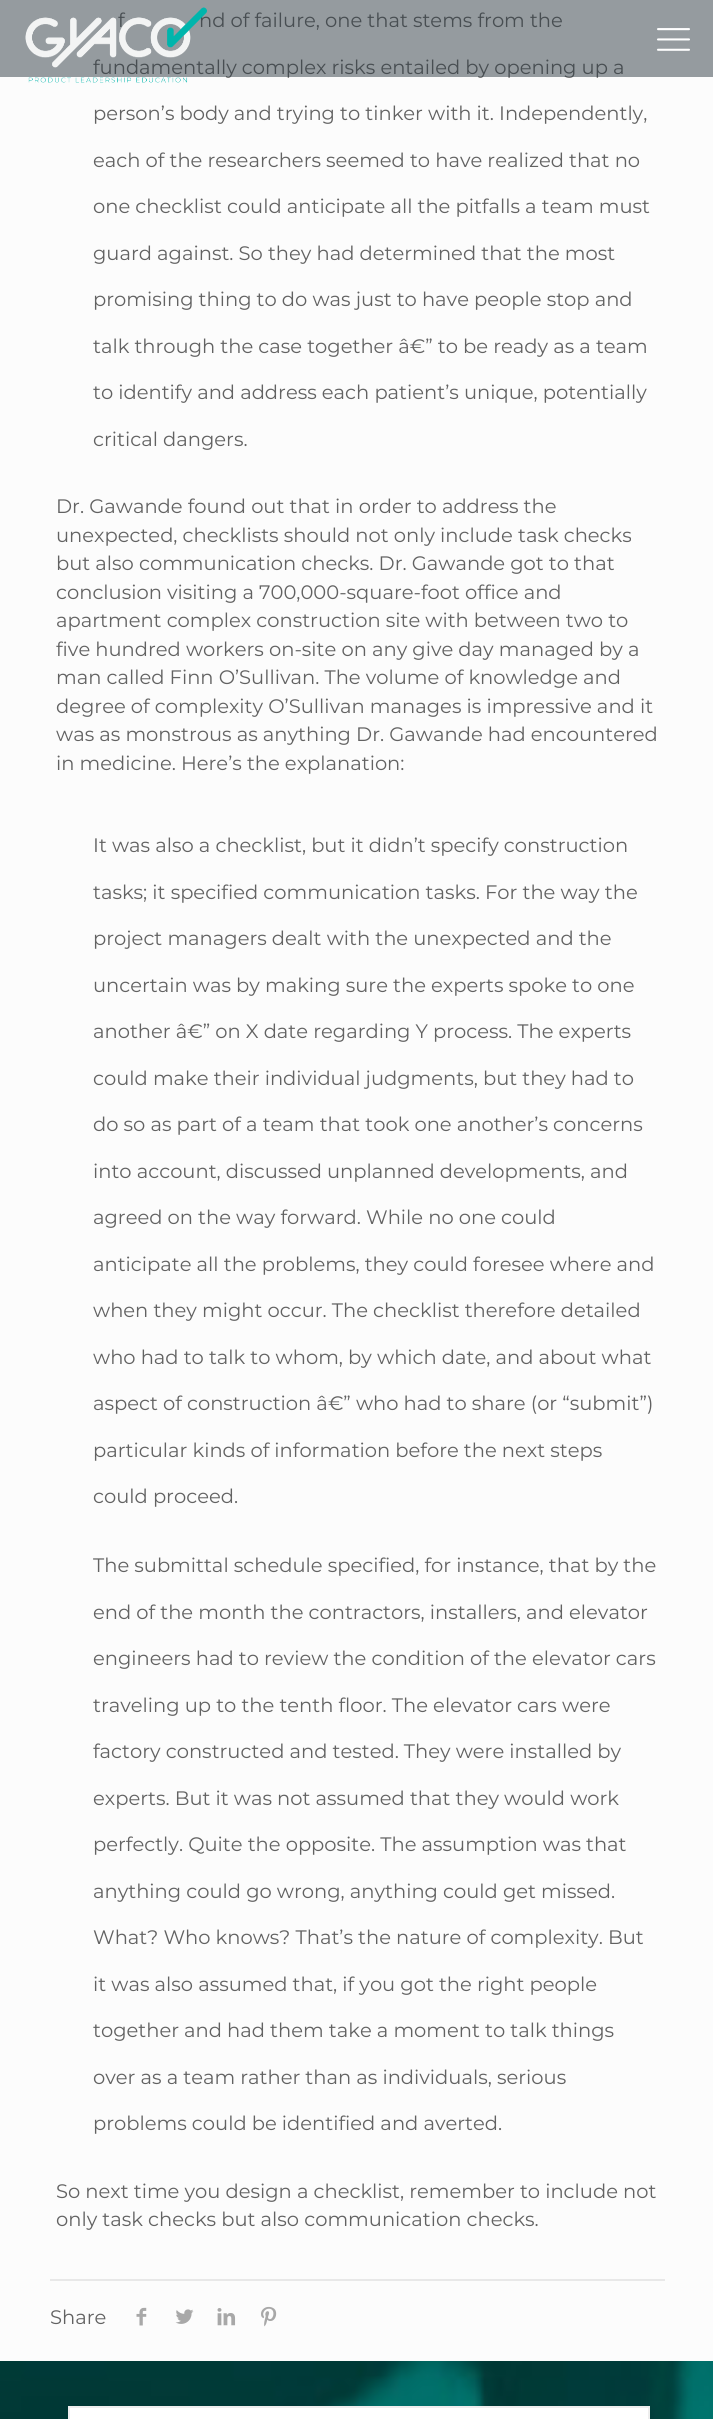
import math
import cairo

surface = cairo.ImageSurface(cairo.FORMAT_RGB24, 713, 2419)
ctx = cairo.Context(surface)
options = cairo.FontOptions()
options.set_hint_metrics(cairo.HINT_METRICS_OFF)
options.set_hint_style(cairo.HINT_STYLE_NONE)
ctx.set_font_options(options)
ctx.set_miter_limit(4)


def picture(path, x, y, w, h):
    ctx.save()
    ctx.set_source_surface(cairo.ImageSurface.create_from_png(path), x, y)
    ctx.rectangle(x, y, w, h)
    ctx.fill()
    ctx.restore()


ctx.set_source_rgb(0.988, 0.988, 0.988)
ctx.paint()
ctx.select_font_face("Montserrat")
ctx.set_font_size(19.5)
ctx.set_source_rgb(0.384, 0.384, 0.384)
ctx.move_to(118, 27)
ctx.show_text("f")
ctx.move_to(199, 27)
ctx.show_text("nd of failure, one that stems from the")
ctx.move_to(93, 74)
ctx.show_text("fundamentally complex risks entailed by opening up a")
ctx.set_source_rgba(0.18, 0.231, 0.259, 0.5)
ctx.rectangle(0, 0, 713, 77)
ctx.fill()
picture("img1.png", 25, 7, 182, 76)
picture("img2.png", 657, 28, 33, 23)
ctx.set_source_rgb(0.384, 0.384, 0.384)
ctx.move_to(93, 120)
ctx.show_text("person’s body and trying to tinker with it. Independently,")
ctx.move_to(93, 167)
ctx.show_text("each of the researchers seemed to have realized that no")
ctx.move_to(93, 213)
ctx.show_text("one checklist could anticipate all the pitfalls a team must")
ctx.move_to(93, 260)
ctx.show_text("guard against. So they had determined that the most")
ctx.move_to(93, 306)
ctx.show_text("promising thing to do was just to have people stop and")
ctx.move_to(93, 353)
ctx.show_text("talk through the case together â€” to be ready as a team")
ctx.move_to(93, 399)
ctx.show_text("to identify and address each patient’s unique, potentially")
ctx.move_to(93, 446)
ctx.show_text("critical dangers.")
ctx.move_to(56, 513)
ctx.show_text("Dr. Gawande found out that in order to address the")
ctx.move_to(56, 542)
ctx.show_text("unexpected, checklists should not only include task checks")
ctx.move_to(56, 570)
ctx.show_text("but also communication checks. Dr. Gawande got to that")
ctx.move_to(56, 599)
ctx.show_text("conclusion visiting a 700,000-square-foot office and")
ctx.move_to(56, 627)
ctx.show_text("apartment complex construction site with between two to")
ctx.move_to(56, 656)
ctx.show_text("five hundred workers on-site on any give day managed by a")
ctx.move_to(56, 684)
ctx.show_text("man called Finn O’Sullivan. The volume of knowledge and")
ctx.move_to(56, 713)
ctx.show_text("degree of complexity O’Sullivan manages is impressive and it")
ctx.move_to(56, 741)
ctx.show_text("was as monstrous as anything Dr. Gawande had encountered")
ctx.move_to(56, 770)
ctx.show_text("in medicine. Here’s the explanation:")
ctx.move_to(93, 852)
ctx.show_text("It was also a checklist, but it didn’t specify construction")
ctx.move_to(93, 899)
ctx.show_text("tasks; it specified communication tasks. For the way the")
ctx.move_to(93, 945)
ctx.show_text("project managers dealt with the unexpected and the")
ctx.move_to(93, 992)
ctx.show_text("uncertain was by making sure the experts spoke to one")
ctx.move_to(93, 1038)
ctx.show_text("another â€” on X date regarding Y process. The experts")
ctx.move_to(93, 1085)
ctx.show_text("could make their individual judgments, but they had to")
ctx.move_to(93, 1131)
ctx.show_text("do so as part of a team that took one another’s concerns")
ctx.move_to(93, 1178)
ctx.show_text("into account, discussed unplanned developments, and")
ctx.move_to(93, 1224)
ctx.show_text("agreed on the way forward. While no one could")
ctx.move_to(93, 1271)
ctx.show_text("anticipate all the problems, they could foresee where and")
ctx.move_to(93, 1317)
ctx.show_text("when they might occur. The checklist therefore detailed")
ctx.move_to(93, 1364)
ctx.show_text("who had to talk to whom, by which date, and about what")
ctx.move_to(93, 1410)
ctx.show_text("aspect of construction â€” who had to share (or “submit”)")
ctx.move_to(93, 1457)
ctx.show_text("particular kinds of information before the next steps")
ctx.move_to(93, 1503)
ctx.show_text("could proceed.")
ctx.move_to(93, 1572)
ctx.show_text("The submittal schedule specified, for instance, that by the")
ctx.move_to(93, 1619)
ctx.show_text("end of the month the contractors, installers, and elevator")
ctx.move_to(93, 1665)
ctx.show_text("engineers had to review the condition of the elevator cars")
ctx.move_to(93, 1712)
ctx.show_text("traveling up to the tenth floor. The elevator cars were")
ctx.move_to(93, 1758)
ctx.show_text("factory constructed and tested. They were installed by")
ctx.move_to(93, 1805)
ctx.show_text("experts. But it was not assumed that they would work")
ctx.move_to(93, 1851)
ctx.show_text("perfectly. Quite the opposite. The assumption was that")
ctx.move_to(93, 1898)
ctx.show_text("anything could go wrong, anything could get missed.")
ctx.move_to(93, 1944)
ctx.show_text("What? Who knows? That’s the nature of complexity. But")
ctx.move_to(93, 1991)
ctx.show_text("it was also assumed that, if you got the right people")
ctx.move_to(93, 2037)
ctx.show_text("together and had them take a moment to talk things")
ctx.move_to(93, 2084)
ctx.show_text("over as a team rather than as individuals, serious")
ctx.move_to(93, 2130)
ctx.show_text("problems could be identified and averted.")
ctx.move_to(56, 2198)
ctx.show_text("So next time you design a checklist, remember to include not")
ctx.move_to(56, 2226)
ctx.show_text("only task checks but also communication checks.")
ctx.set_source_rgb(0.91, 0.91, 0.91)
ctx.rectangle(50, 2279, 615, 2)
ctx.fill()
ctx.set_source_rgb(0.384, 0.384, 0.384)
ctx.move_to(50, 2324)
ctx.show_text("Share")
picture("img3.png", 136, 2307, 11, 19)
picture("img4.png", 175, 2309, 19, 15)
picture("img5.png", 217, 2308, 19, 18)
picture("img6.png", 261, 2306, 16, 21)
picture("img7.png", 0, 2361, 713, 58)
ctx.set_source_rgb(1, 1, 1)
ctx.rectangle(69, 2407, 580, 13)
ctx.fill_preserve()
ctx.set_source_rgb(0.933, 0.933, 0.933)
ctx.stroke()
surface.write_to_png("page.png")
